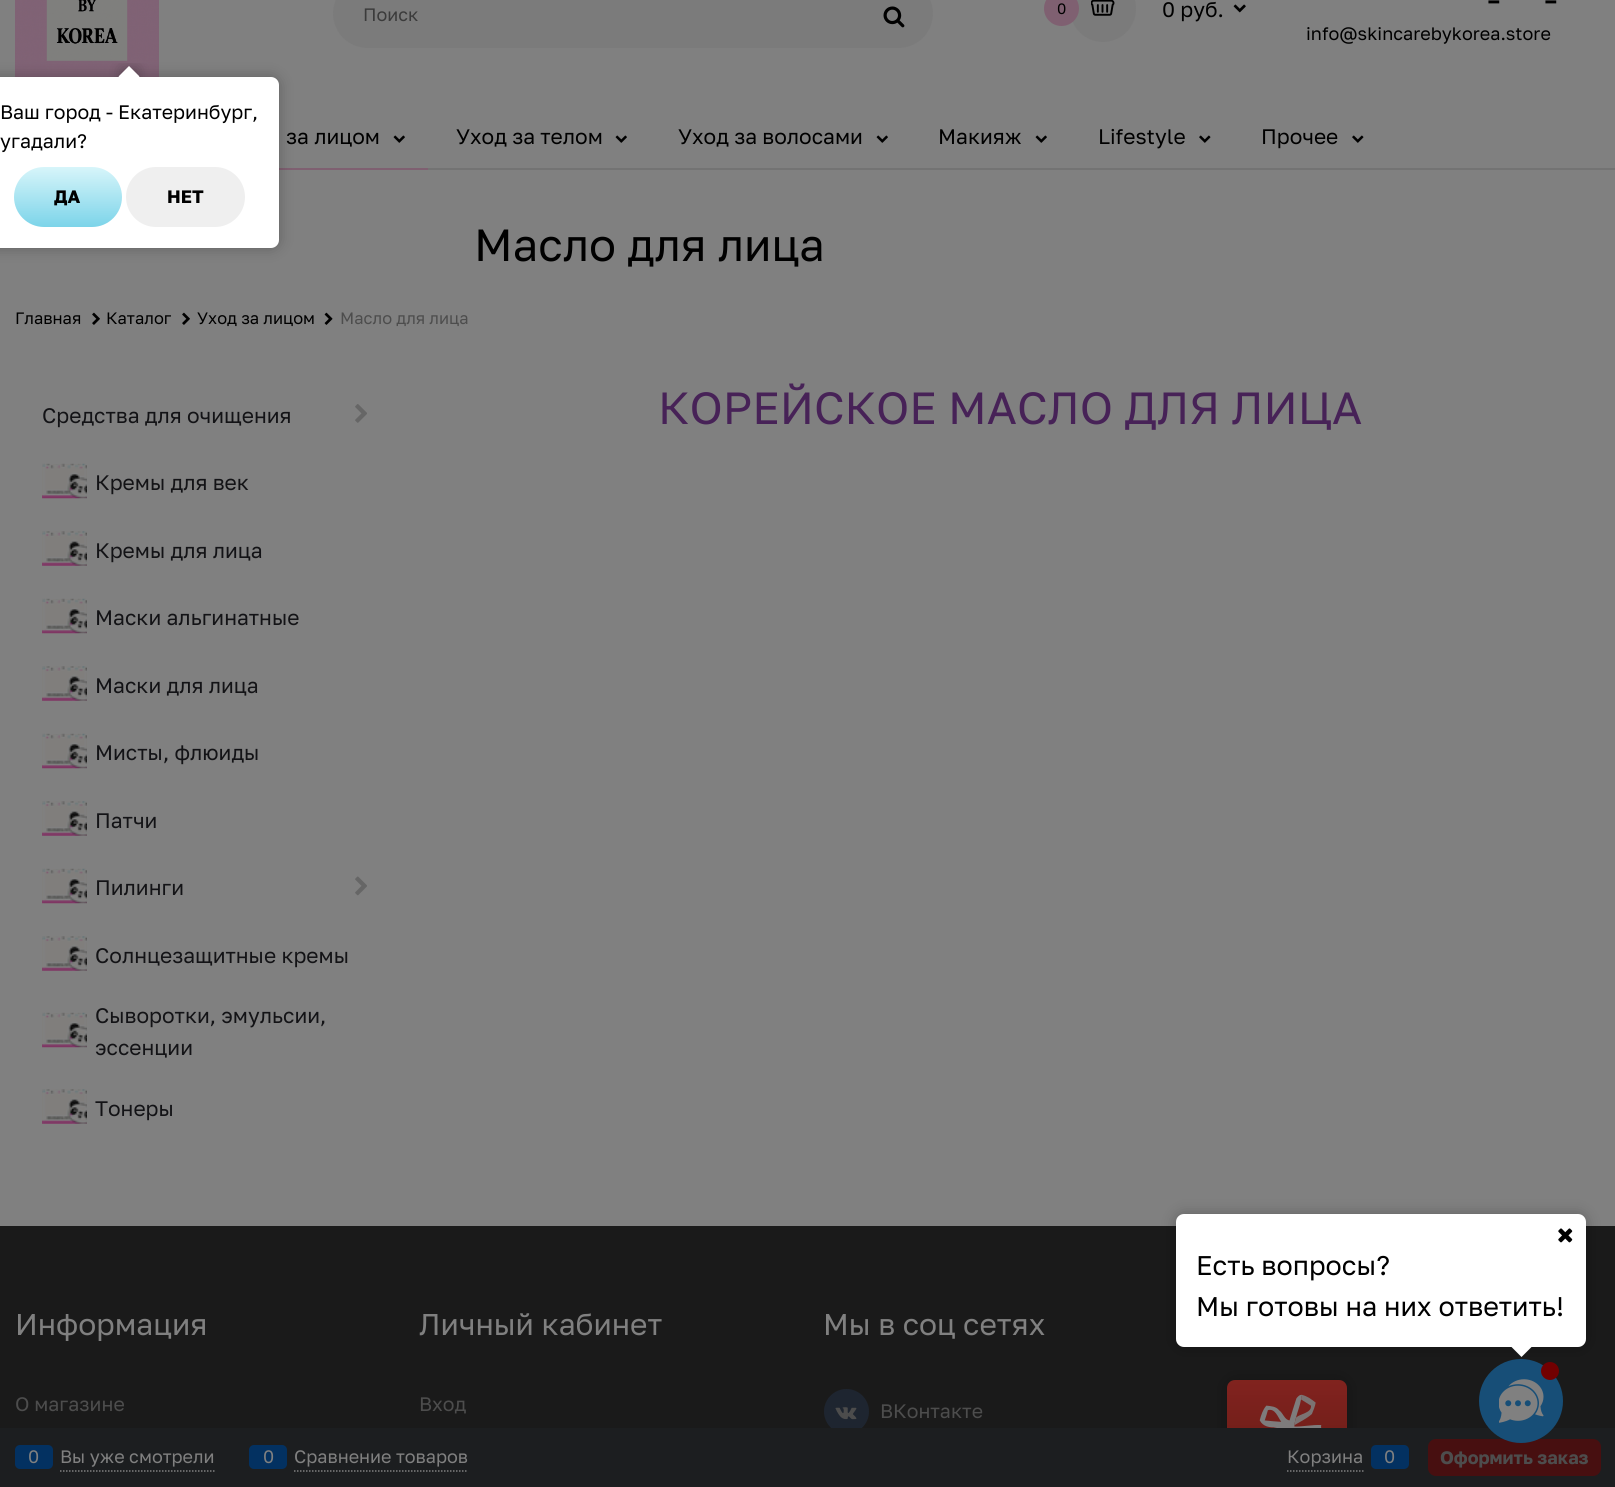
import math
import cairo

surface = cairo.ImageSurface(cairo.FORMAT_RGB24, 1615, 1487)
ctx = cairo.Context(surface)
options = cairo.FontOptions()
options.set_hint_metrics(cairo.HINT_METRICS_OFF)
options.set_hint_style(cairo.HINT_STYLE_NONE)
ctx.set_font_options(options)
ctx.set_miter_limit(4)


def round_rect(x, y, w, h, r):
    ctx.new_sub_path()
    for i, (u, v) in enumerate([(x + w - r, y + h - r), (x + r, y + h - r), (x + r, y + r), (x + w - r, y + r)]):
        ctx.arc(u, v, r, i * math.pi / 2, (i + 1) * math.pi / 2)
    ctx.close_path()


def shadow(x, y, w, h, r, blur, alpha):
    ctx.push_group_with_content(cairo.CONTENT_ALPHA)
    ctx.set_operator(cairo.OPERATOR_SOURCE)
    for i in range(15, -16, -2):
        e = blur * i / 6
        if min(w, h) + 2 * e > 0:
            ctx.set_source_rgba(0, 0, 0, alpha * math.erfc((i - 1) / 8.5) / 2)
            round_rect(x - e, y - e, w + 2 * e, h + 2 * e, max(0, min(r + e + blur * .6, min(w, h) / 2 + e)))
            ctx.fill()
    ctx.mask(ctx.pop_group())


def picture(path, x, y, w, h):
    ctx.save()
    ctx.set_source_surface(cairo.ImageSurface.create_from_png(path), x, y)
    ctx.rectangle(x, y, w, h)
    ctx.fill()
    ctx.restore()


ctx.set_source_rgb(0.502, 0.502, 0.502)
ctx.paint()
picture("img1.png", 15, 0, 144, 77)
ctx.set_source_rgb(0.482, 0.482, 0.482)
round_rect(333, -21, 600, 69, 34.5)
ctx.fill()
ctx.select_font_face("Golos Text")
ctx.set_font_size(18)
ctx.set_source_rgb(0.231, 0.231, 0.231)
ctx.move_to(363, 21)
ctx.show_text("Поиск")
picture("img2.png", 883, 6, 22, 22)
ctx.set_source_rgb(0.482, 0.482, 0.482)
round_rect(1070, -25, 66, 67, 33)
ctx.fill()
ctx.set_source_rgb(0.498, 0.376, 0.443)
ctx.arc(1061.5, 8.5, 17.5, 0, 2 * math.pi)
ctx.fill()
ctx.set_font_size(15)
ctx.set_source_rgb(0, 0, 0)
ctx.move_to(1057, 14)
ctx.show_text("0")
picture("img3.png", 1091, 0, 24, 16)
ctx.set_font_size(21)
ctx.move_to(1162, 17)
ctx.show_text("0 руб.")
picture("img4.png", 1233, 4, 13, 9)
ctx.set_font_size(36)
ctx.move_to(1487, 12)
ctx.show_text("-")
ctx.move_to(1544, 12)
ctx.show_text("-")
ctx.set_font_size(18)
ctx.move_to(1306, 40)
ctx.show_text("info@skincarebykorea.store")
ctx.set_source_rgb(0.451, 0.451, 0.451)
ctx.rectangle(428, 168, 1187, 2)
ctx.fill()
ctx.set_source_rgb(0.498, 0.376, 0.443)
ctx.rectangle(279, 168, 149, 2)
ctx.fill()
ctx.set_font_size(21)
ctx.set_source_rgb(0, 0, 0)
ctx.move_to(286, 144)
ctx.show_text("за лицом")
picture("img5.png", 393, 135, 12, 8)
ctx.move_to(456, 144)
ctx.show_text("Уход за телом")
picture("img5.png", 615, 135, 12, 8)
ctx.move_to(678, 144)
ctx.show_text("Уход за волосами")
picture("img5.png", 876, 135, 12, 8)
ctx.move_to(938, 144)
ctx.show_text("Макияж")
picture("img5.png", 1035, 135, 12, 8)
ctx.move_to(1098, 144)
ctx.show_text("Lifestyle")
picture("img6.png", 1199, 135, 12, 8)
ctx.move_to(1261, 144)
ctx.show_text("Прочее")
picture("img6.png", 1352, 135, 12, 8)
ctx.set_font_size(45)
ctx.move_to(474, 261)
ctx.show_text("Масло для лица")
ctx.set_font_size(16.5)
ctx.move_to(15, 324)
ctx.show_text("Главная")
picture("img7.png", 92, 312, 8, 13)
ctx.move_to(106, 324)
ctx.show_text("Каталог")
picture("img7.png", 182, 312, 8, 13)
ctx.move_to(197, 324)
ctx.show_text("Уход за лицом")
picture("img8.png", 324, 312, 9, 13)
ctx.set_source_rgb(0.302, 0.302, 0.302)
ctx.move_to(340, 324)
ctx.show_text("Масло для лица")
ctx.set_font_size(21)
ctx.set_source_rgb(0.075, 0.078, 0.086)
ctx.move_to(42, 423)
ctx.show_text("Средства для очищения")
picture("img9.png", 355, 404, 12, 19)
picture("img10.png", 42, 463, 45, 36)
ctx.move_to(95, 490)
ctx.show_text("Кремы для век")
picture("img11.png", 42, 531, 45, 35)
ctx.move_to(95, 558)
ctx.show_text("Кремы для лица")
picture("img10.png", 42, 598, 45, 36)
ctx.move_to(95, 625)
ctx.show_text("Маски альгинатные")
picture("img11.png", 42, 666, 45, 35)
ctx.move_to(95, 693)
ctx.show_text("Маски для лица")
picture("img10.png", 42, 733, 45, 36)
ctx.move_to(95, 760)
ctx.show_text("Мисты, флюиды")
picture("img11.png", 42, 801, 45, 35)
ctx.move_to(95, 828)
ctx.show_text("Патчи")
picture("img10.png", 42, 868, 45, 36)
ctx.move_to(95, 895)
ctx.show_text("Пилинги")
picture("img12.png", 355, 876, 12, 20)
picture("img11.png", 42, 936, 45, 35)
ctx.move_to(95, 963)
ctx.show_text("Солнцезащитные кремы")
picture("img10.png", 42, 1012, 45, 36)
ctx.move_to(95, 1023)
ctx.show_text("Сыворотки, эмульсии,")
ctx.move_to(95, 1055)
ctx.show_text("эссенции")
picture("img11.png", 42, 1089, 45, 35)
ctx.move_to(95, 1116)
ctx.show_text("Тонеры")
ctx.set_font_size(45)
ctx.set_source_rgb(0.278, 0.133, 0.341)
ctx.move_to(658, 424)
ctx.show_text("КОРЕЙСКОЕ МАСЛО ДЛЯ ЛИЦА")
ctx.set_source_rgb(0.102, 0.102, 0.102)
ctx.rectangle(0, 1226, 1615, 202)
ctx.fill()
ctx.set_font_size(30)
ctx.set_source_rgb(0.502, 0.502, 0.502)
ctx.move_to(15, 1335)
ctx.show_text("Информация")
ctx.set_font_size(19.5)
ctx.set_source_rgb(0.302, 0.302, 0.302)
ctx.move_to(15, 1411)
ctx.show_text("О магазине")
ctx.set_font_size(30)
ctx.set_source_rgb(0.502, 0.502, 0.502)
ctx.move_to(419, 1335)
ctx.show_text("Личный кабинет")
ctx.set_font_size(19.5)
ctx.set_source_rgb(0.302, 0.302, 0.302)
ctx.move_to(419, 1411)
ctx.show_text("Вход")
ctx.set_font_size(30)
ctx.set_source_rgb(0.502, 0.502, 0.502)
ctx.move_to(823, 1335)
ctx.show_text("Мы в соц сетях")
ctx.set_source_rgb(0.118, 0.145, 0.188)
ctx.new_path()
ctx.arc(846.5, 1411.5, 22.5, 0, 2 * math.pi)
ctx.fill()
picture("img13.png", 835, 1407, 22, 13)
ctx.set_font_size(19.5)
ctx.set_source_rgb(0.302, 0.302, 0.302)
ctx.move_to(880, 1418)
ctx.show_text("ВКонтакте")
ctx.set_source_rgb(0, 0, 0)
shadow(1227, 1380, 120, 75, 8, 7, 0.25)
gradient = cairo.LinearGradient(1287, 1380, 1287, 1455)
gradient.add_color_stop_rgba(0, 0.502, 0.137, 0.118, 1)
gradient.add_color_stop_rgba(0.12, 0.498, 0.133, 0.118, 1)
gradient.add_color_stop_rgba(0.67, 0.455, 0.122, 0.102, 1)
gradient.add_color_stop_rgba(0.98, 0.439, 0.114, 0.098, 1)
gradient.add_color_stop_rgba(1, 0.443, 0.145, 0.129, 1)
ctx.set_source(gradient)
round_rect(1227, 1380, 120, 75, 8)
ctx.fill()
picture("img14.png", 1259, 1394, 63, 34)
ctx.set_source_rgb(0.11, 0.118, 0.125)
ctx.rectangle(0, 1428, 1615, 59)
ctx.fill()
ctx.new_path()
ctx.move_to(60, 1471)
ctx.line_to(214.5, 1471)
ctx.set_source_rgb(0.502, 0.502, 0.502)
ctx.set_line_width(1.5)
ctx.set_dash([1.5, 1.5])
ctx.stroke()
ctx.set_source_rgb(0.012, 0.192, 0.38)
round_rect(15, 1445, 38, 24, 5)
ctx.fill()
ctx.set_font_size(18)
ctx.set_source_rgb(0.502, 0.502, 0.502)
ctx.move_to(28, 1463)
ctx.show_text("0")
ctx.move_to(60, 1463)
ctx.show_text("Вы уже смотрели")
ctx.new_path()
ctx.move_to(294, 1471)
ctx.line_to(468, 1471)
ctx.stroke()
ctx.set_source_rgb(0.012, 0.192, 0.38)
round_rect(249, 1445, 38, 24, 5)
ctx.fill()
ctx.set_source_rgb(0.502, 0.502, 0.502)
ctx.move_to(263, 1463)
ctx.show_text("0")
ctx.move_to(294, 1463)
ctx.show_text("Сравнение товаров")
ctx.new_path()
ctx.move_to(1287, 1471)
ctx.line_to(1363.5, 1471)
ctx.stroke()
ctx.move_to(1287, 1463)
ctx.show_text("Корзина")
ctx.set_source_rgb(0.012, 0.192, 0.38)
round_rect(1371, 1445, 38, 24, 5)
ctx.fill()
ctx.set_source_rgb(0.502, 0.502, 0.502)
ctx.move_to(1384, 1463)
ctx.show_text("0")
ctx.set_source_rgb(0.278, 0.059, 0.063)
round_rect(1428, 1439, 173, 37, 8)
ctx.fill()
ctx.select_font_face("Golos Text", cairo.FONT_SLANT_NORMAL, cairo.FONT_WEIGHT_BOLD)
ctx.set_source_rgb(0.302, 0.302, 0.302)
ctx.move_to(1440, 1464)
ctx.show_text("Оформить заказ")
ctx.set_source_rgb(0, 0, 0)
shadow(-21, 77, 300, 171, 8, 7, 0.25)
ctx.set_source_rgb(1, 1, 1)
round_rect(-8, 77, 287, 171, 8)
ctx.fill()
ctx.save()
ctx.rectangle(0, 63, 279, 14)
ctx.clip()
ctx.set_source_rgb(0, 0, 0)
shadow(122, 69, 15, 15, 0, 7, 0.25)
ctx.restore()
ctx.save()
ctx.rectangle(0, 63, 279, 14)
ctx.clip()
ctx.new_path()
ctx.move_to(129, 66)
ctx.line_to(139.5, 76.5)
ctx.line_to(129, 87)
ctx.line_to(118.5, 76.5)
ctx.close_path()
ctx.fill()
ctx.restore()
ctx.select_font_face("Golos Text")
ctx.set_font_size(19.5)
ctx.set_source_rgb(0, 0, 0)
ctx.move_to(0, 119)
ctx.show_text("Ваш город - Екатеринбург,")
ctx.move_to(0, 148)
ctx.show_text("угадали?")
gradient = cairo.LinearGradient(68, 167, 68, 227)
gradient.add_color_stop_rgba(0, 0.843, 0.961, 0.98, 1)
gradient.add_color_stop_rgba(1, 0.486, 0.831, 0.914, 1)
ctx.set_source(gradient)
round_rect(14, 167, 108, 60, 30)
ctx.fill()
ctx.select_font_face("Golos Text", cairo.FONT_SLANT_NORMAL, cairo.FONT_WEIGHT_BOLD)
ctx.set_font_size(18)
ctx.set_source_rgb(0, 0, 0)
ctx.move_to(54, 203)
ctx.show_text("ДА")
ctx.set_source_rgb(0.937, 0.937, 0.937)
round_rect(126, 167, 119, 60, 30)
ctx.fill()
ctx.set_source_rgb(0, 0, 0)
ctx.move_to(167, 203)
ctx.show_text("НЕТ")
ctx.set_source_rgb(0.09, 0.306, 0.467)
ctx.new_path()
ctx.arc(1521, 1401, 42, 0, 2 * math.pi)
ctx.fill()
picture("img16.png", 1499, 1379, 45, 44)
ctx.set_source_rgb(0.447, 0, 0.004)
ctx.arc(1550, 1371, 9, 0, 2 * math.pi)
ctx.fill()
ctx.set_source_rgb(0, 0, 0)
shadow(1176, 1214, 410, 133, 8, 7, 0.25)
ctx.set_source_rgb(1, 1, 1)
round_rect(1176, 1214, 410, 133, 8)
ctx.fill()
picture("img15.png", 1558, 1228, 15, 15)
ctx.select_font_face("Golos Text")
ctx.set_font_size(27)
ctx.set_source_rgb(0, 0, 0)
ctx.move_to(1196, 1275)
ctx.show_text("Есть вопросы?")
ctx.move_to(1196, 1316)
ctx.show_text("Мы готовы на них ответить!")
ctx.save()
ctx.rectangle(1176, 1347, 410, 14)
ctx.clip()
ctx.set_source_rgb(1, 1, 1)
ctx.new_path()
ctx.move_to(1521.5, 1336)
ctx.line_to(1532, 1346.5)
ctx.line_to(1521.5, 1357)
ctx.line_to(1511, 1346.5)
ctx.close_path()
ctx.fill()
ctx.restore()
surface.write_to_png("page.png")
